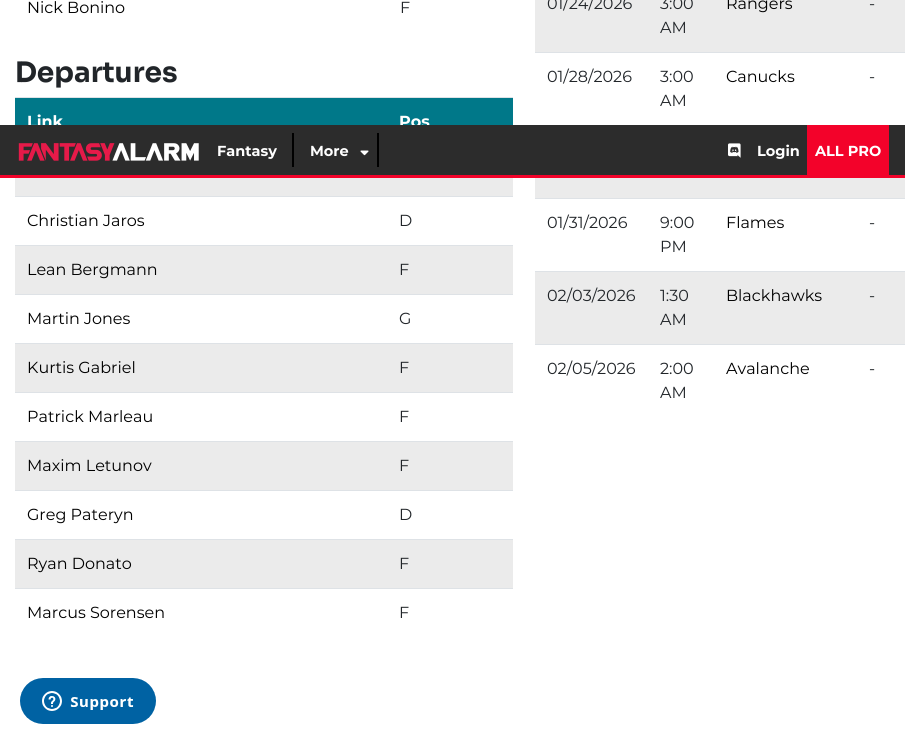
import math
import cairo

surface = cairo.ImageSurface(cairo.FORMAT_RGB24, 905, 738)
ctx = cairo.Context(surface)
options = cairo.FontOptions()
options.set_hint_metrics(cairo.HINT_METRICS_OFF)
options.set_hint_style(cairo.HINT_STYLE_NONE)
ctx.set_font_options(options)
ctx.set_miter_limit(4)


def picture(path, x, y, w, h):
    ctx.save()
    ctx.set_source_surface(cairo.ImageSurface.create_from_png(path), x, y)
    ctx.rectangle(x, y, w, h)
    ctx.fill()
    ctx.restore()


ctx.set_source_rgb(1, 1, 1)
ctx.paint()
ctx.select_font_face("Montserrat")
ctx.set_font_size(16)
ctx.set_source_rgb(0, 0, 0)
ctx.move_to(27, 13)
ctx.show_text("Nick Bonino")
ctx.set_source_rgb(0.129, 0.145, 0.161)
ctx.move_to(400, 13)
ctx.show_text("F")
ctx.select_font_face("Sora", cairo.FONT_SLANT_NORMAL, cairo.FONT_WEIGHT_BOLD)
ctx.set_font_size(28)
ctx.move_to(15, 82)
ctx.show_text("Departures")
ctx.set_source_rgb(0, 0.471, 0.537)
ctx.rectangle(15, 98, 498, 27)
ctx.fill()
ctx.select_font_face("Montserrat", cairo.FONT_SLANT_NORMAL, cairo.FONT_WEIGHT_BOLD)
ctx.set_font_size(16)
ctx.set_source_rgb(1, 1, 1)
ctx.move_to(27, 127)
ctx.show_text("Link")
ctx.set_source_rgb(0.871, 0.886, 0.902)
ctx.rectangle(15, 97, 498, 1)
ctx.fill()
ctx.set_source_rgb(1, 1, 1)
ctx.move_to(399, 127)
ctx.show_text("Pos")
ctx.set_source_rgb(0.918, 0.918, 0.918)
ctx.rectangle(15, 178, 498, 18)
ctx.fill()
ctx.select_font_face("Montserrat")
ctx.set_source_rgb(0, 0, 0)
ctx.move_to(27, 226)
ctx.show_text("Christian Jaros")
ctx.set_source_rgb(0.871, 0.886, 0.902)
ctx.rectangle(15, 196, 498, 1)
ctx.fill()
ctx.set_source_rgb(0.129, 0.145, 0.161)
ctx.move_to(399, 226)
ctx.show_text("D")
ctx.set_source_rgb(0.918, 0.918, 0.918)
ctx.rectangle(15, 246, 498, 48)
ctx.fill()
ctx.set_source_rgb(0, 0, 0)
ctx.move_to(27, 275)
ctx.show_text("Lean Bergmann")
ctx.set_source_rgb(0.871, 0.886, 0.902)
ctx.rectangle(15, 245, 498, 1)
ctx.fill()
ctx.set_source_rgb(0.129, 0.145, 0.161)
ctx.move_to(399, 275)
ctx.show_text("F")
ctx.set_source_rgb(0, 0, 0)
ctx.move_to(27, 324)
ctx.show_text("Martin Jones")
ctx.set_source_rgb(0.871, 0.886, 0.902)
ctx.rectangle(15, 294, 498, 1)
ctx.fill()
ctx.set_source_rgb(0.129, 0.145, 0.161)
ctx.move_to(399, 324)
ctx.show_text("G")
ctx.set_source_rgb(0.918, 0.918, 0.918)
ctx.rectangle(15, 344, 498, 48)
ctx.fill()
ctx.set_source_rgb(0, 0, 0)
ctx.move_to(27, 373)
ctx.show_text("Kurtis Gabriel")
ctx.set_source_rgb(0.871, 0.886, 0.902)
ctx.rectangle(15, 343, 498, 1)
ctx.fill()
ctx.set_source_rgb(0.129, 0.145, 0.161)
ctx.move_to(399, 373)
ctx.show_text("F")
ctx.set_source_rgb(0, 0, 0)
ctx.move_to(27, 422)
ctx.show_text("Patrick Marleau")
ctx.set_source_rgb(0.871, 0.886, 0.902)
ctx.rectangle(15, 392, 498, 1)
ctx.fill()
ctx.set_source_rgb(0.129, 0.145, 0.161)
ctx.move_to(399, 422)
ctx.show_text("F")
ctx.set_source_rgb(0.918, 0.918, 0.918)
ctx.rectangle(15, 442, 498, 48)
ctx.fill()
ctx.set_source_rgb(0, 0, 0)
ctx.move_to(27, 471)
ctx.show_text("Maxim Letunov")
ctx.set_source_rgb(0.871, 0.886, 0.902)
ctx.rectangle(15, 441, 498, 1)
ctx.fill()
ctx.set_source_rgb(0.129, 0.145, 0.161)
ctx.move_to(399, 471)
ctx.show_text("F")
ctx.set_source_rgb(0, 0, 0)
ctx.move_to(27, 520)
ctx.show_text("Greg Pateryn")
ctx.set_source_rgb(0.871, 0.886, 0.902)
ctx.rectangle(15, 490, 498, 1)
ctx.fill()
ctx.set_source_rgb(0.129, 0.145, 0.161)
ctx.move_to(399, 520)
ctx.show_text("D")
ctx.set_source_rgb(0.918, 0.918, 0.918)
ctx.rectangle(15, 540, 498, 48)
ctx.fill()
ctx.set_source_rgb(0, 0, 0)
ctx.move_to(27, 569)
ctx.show_text("Ryan Donato")
ctx.set_source_rgb(0.871, 0.886, 0.902)
ctx.rectangle(15, 539, 498, 1)
ctx.fill()
ctx.set_source_rgb(0.129, 0.145, 0.161)
ctx.move_to(399, 569)
ctx.show_text("F")
ctx.set_source_rgb(0, 0, 0)
ctx.move_to(27, 618)
ctx.show_text("Marcus Sorensen")
ctx.set_source_rgb(0.871, 0.886, 0.902)
ctx.rectangle(15, 588, 498, 1)
ctx.fill()
ctx.set_source_rgb(0.129, 0.145, 0.161)
ctx.move_to(399, 618)
ctx.show_text("F")
ctx.set_source_rgb(0.918, 0.918, 0.918)
ctx.rectangle(535, 0, 370, 52)
ctx.fill()
ctx.set_source_rgb(0.129, 0.145, 0.161)
ctx.move_to(547, 9)
ctx.show_text("01/24/2026")
ctx.move_to(660, 9)
ctx.show_text("3:00")
ctx.move_to(660, 33)
ctx.show_text("AM")
ctx.set_source_rgb(0, 0, 0)
ctx.move_to(726, 9)
ctx.show_text("Rangers")
ctx.set_source_rgb(0.129, 0.145, 0.161)
ctx.move_to(869, 9)
ctx.show_text("-")
ctx.move_to(547, 82)
ctx.show_text("01/28/2026")
ctx.move_to(660, 82)
ctx.show_text("3:00")
ctx.move_to(660, 106)
ctx.show_text("AM")
ctx.set_source_rgb(0, 0, 0)
ctx.move_to(726, 82)
ctx.show_text("Canucks")
ctx.set_source_rgb(0.871, 0.886, 0.902)
ctx.rectangle(535, 52, 370, 1)
ctx.fill()
ctx.set_source_rgb(0.129, 0.145, 0.161)
ctx.move_to(869, 82)
ctx.show_text("-")
ctx.set_source_rgb(0.918, 0.918, 0.918)
ctx.rectangle(535, 178, 370, 20)
ctx.fill()
ctx.set_source_rgb(0.129, 0.145, 0.161)
ctx.move_to(547, 228)
ctx.show_text("01/31/2026")
ctx.move_to(660, 228)
ctx.show_text("9:00")
ctx.move_to(660, 252)
ctx.show_text("PM")
ctx.set_source_rgb(0, 0, 0)
ctx.move_to(726, 228)
ctx.show_text("Flames")
ctx.set_source_rgb(0.871, 0.886, 0.902)
ctx.rectangle(535, 198, 370, 1)
ctx.fill()
ctx.set_source_rgb(0.129, 0.145, 0.161)
ctx.move_to(869, 228)
ctx.show_text("-")
ctx.set_source_rgb(0.918, 0.918, 0.918)
ctx.rectangle(535, 272, 370, 72)
ctx.fill()
ctx.set_source_rgb(0.129, 0.145, 0.161)
ctx.move_to(547, 301)
ctx.show_text("02/03/2026")
ctx.move_to(660, 301)
ctx.show_text("1:30")
ctx.move_to(660, 325)
ctx.show_text("AM")
ctx.set_source_rgb(0, 0, 0)
ctx.move_to(726, 301)
ctx.show_text("Blackhawks")
ctx.set_source_rgb(0.871, 0.886, 0.902)
ctx.rectangle(535, 271, 370, 1)
ctx.fill()
ctx.set_source_rgb(0.129, 0.145, 0.161)
ctx.move_to(869, 301)
ctx.show_text("-")
ctx.move_to(547, 374)
ctx.show_text("02/05/2026")
ctx.move_to(660, 374)
ctx.show_text("2:00")
ctx.move_to(660, 398)
ctx.show_text("AM")
ctx.set_source_rgb(0, 0, 0)
ctx.move_to(726, 374)
ctx.show_text("Avalanche")
ctx.set_source_rgb(0.871, 0.886, 0.902)
ctx.rectangle(535, 344, 370, 1)
ctx.fill()
ctx.set_source_rgb(0.129, 0.145, 0.161)
ctx.move_to(869, 374)
ctx.show_text("-")
ctx.set_source_rgb(0.953, 0.008, 0.165)
ctx.rectangle(0, 175, 905, 3)
ctx.fill()
ctx.set_source_rgb(0.173, 0.173, 0.173)
ctx.rectangle(0, 125, 905, 50)
ctx.fill()
picture("img1.png", 18, 143, 181, 18)
ctx.set_source_rgb(0, 0, 0)
ctx.rectangle(292, 133, 2, 34)
ctx.fill()
ctx.select_font_face("Montserrat", cairo.FONT_SLANT_NORMAL, cairo.FONT_WEIGHT_BOLD)
ctx.set_font_size(14.5)
ctx.set_source_rgb(1, 1, 1)
ctx.move_to(217, 156)
ctx.show_text("Fantasy")
ctx.set_source_rgb(0, 0, 0)
ctx.rectangle(377, 133, 2, 34)
ctx.fill()
ctx.set_source_rgb(1, 1, 1)
ctx.move_to(310, 156)
ctx.show_text("More")
picture("img2.png", 360, 150, 9, 6)
picture("img3.png", 728, 143, 13, 15)
ctx.move_to(757, 156)
ctx.show_text("Login")
ctx.set_source_rgb(0.953, 0.008, 0.165)
ctx.rectangle(807, 125, 82, 50)
ctx.fill()
ctx.set_source_rgb(1, 1, 1)
ctx.move_to(815, 156)
ctx.show_text("ALL PRO")
picture("img4.png", 20, 678, 136, 46)
surface.write_to_png("page.png")
